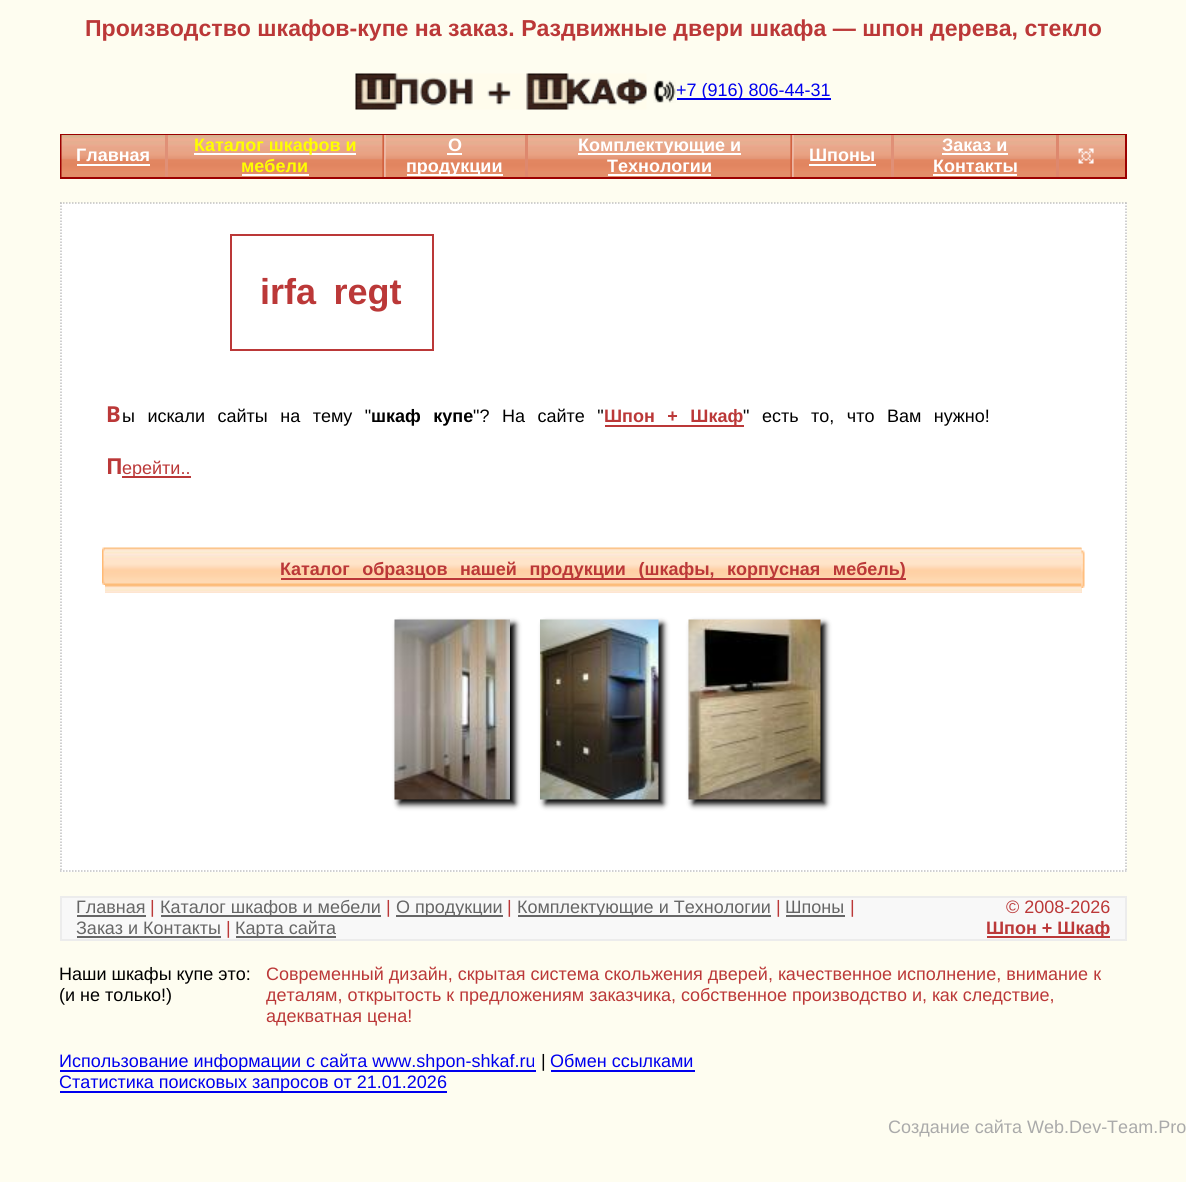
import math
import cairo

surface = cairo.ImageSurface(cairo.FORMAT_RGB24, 1186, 1182)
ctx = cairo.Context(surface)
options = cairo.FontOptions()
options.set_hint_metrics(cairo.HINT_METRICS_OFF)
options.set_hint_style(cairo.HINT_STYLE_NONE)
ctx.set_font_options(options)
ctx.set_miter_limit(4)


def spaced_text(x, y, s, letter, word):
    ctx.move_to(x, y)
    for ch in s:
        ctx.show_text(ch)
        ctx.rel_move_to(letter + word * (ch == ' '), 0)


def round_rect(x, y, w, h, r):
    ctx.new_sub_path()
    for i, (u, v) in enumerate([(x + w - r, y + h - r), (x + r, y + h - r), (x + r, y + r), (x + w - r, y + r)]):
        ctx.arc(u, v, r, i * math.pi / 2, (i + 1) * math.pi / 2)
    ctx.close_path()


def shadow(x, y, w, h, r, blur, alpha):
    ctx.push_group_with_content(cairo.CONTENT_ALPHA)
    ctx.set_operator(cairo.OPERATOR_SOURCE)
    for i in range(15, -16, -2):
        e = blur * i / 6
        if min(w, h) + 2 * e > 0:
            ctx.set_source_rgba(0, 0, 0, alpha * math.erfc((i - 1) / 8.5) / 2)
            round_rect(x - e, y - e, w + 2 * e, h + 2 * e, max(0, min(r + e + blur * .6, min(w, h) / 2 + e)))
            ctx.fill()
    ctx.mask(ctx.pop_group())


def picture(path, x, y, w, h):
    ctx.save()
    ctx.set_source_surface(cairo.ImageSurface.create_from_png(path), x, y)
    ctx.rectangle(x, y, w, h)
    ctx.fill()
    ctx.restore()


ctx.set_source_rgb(0.996, 0.992, 0.941)
ctx.paint()
ctx.select_font_face("Liberation Sans", cairo.FONT_SLANT_NORMAL, cairo.FONT_WEIGHT_BOLD)
ctx.set_font_size(23.1)
ctx.set_source_rgb(0.733, 0.22, 0.22)
ctx.move_to(85, 36)
ctx.show_text("Производство шкафов-купе на заказ. Раздвижные двери шкафа — шпон дерева, стекло")
picture("img1.png", 355, 73, 292, 37)
picture("img2.png", 653, 80, 23, 23)
ctx.set_source_rgb(0, 0, 0.933)
ctx.rectangle(677, 98, 154, 2)
ctx.fill()
ctx.select_font_face("Liberation Sans")
ctx.set_font_size(18)
ctx.move_to(676, 96)
ctx.show_text("+7 (916) 806-44-31")
ctx.rectangle(61, 135, 1065, 43)
ctx.set_source_rgb(0.612, 0, 0)
ctx.stroke()
picture("img3.png", 61, 135, 1064, 42)
ctx.select_font_face("Liberation Sans", cairo.FONT_SLANT_NORMAL, cairo.FONT_WEIGHT_BOLD)
ctx.set_source_rgb(1, 1, 1)
ctx.move_to(76, 161)
ctx.show_text("Главная")
ctx.rectangle(77, 164, 73, 2)
ctx.fill()
ctx.set_source_rgb(0.878, 0.565, 0.467)
ctx.rectangle(165, 135, 3, 42)
ctx.fill()
ctx.set_source_rgb(1, 1, 1)
ctx.rectangle(194, 153, 162, 2)
ctx.fill()
ctx.set_source_rgb(1, 1, 0)
ctx.move_to(194, 151)
ctx.show_text("Каталог шкафов и")
ctx.move_to(241, 172)
ctx.show_text("мебели")
ctx.set_source_rgb(1, 1, 1)
ctx.rectangle(242, 174, 67, 2)
ctx.fill()
picture("img4.png", 382, 135, 4, 42)
ctx.move_to(448, 151)
ctx.show_text("О")
ctx.rectangle(447, 153, 15, 2)
ctx.fill()
ctx.rectangle(407, 174, 96, 2)
ctx.fill()
ctx.move_to(406, 172)
ctx.show_text("продукции")
ctx.set_source_rgb(0.871, 0.533, 0.431)
ctx.rectangle(525, 135, 3, 42)
ctx.fill()
ctx.set_source_rgb(1, 1, 1)
ctx.rectangle(578, 153, 163, 2)
ctx.fill()
ctx.move_to(578, 151)
ctx.show_text("Комплектующие и")
ctx.move_to(607, 172)
ctx.show_text("Технологии")
ctx.rectangle(608, 174, 103, 2)
ctx.fill()
picture("img4.png", 790, 135, 4, 42)
ctx.move_to(809, 161)
ctx.show_text("Шпоны")
ctx.rectangle(809, 164, 67, 2)
ctx.fill()
ctx.set_source_rgb(0.878, 0.565, 0.467)
ctx.rectangle(891, 135, 3, 42)
ctx.fill()
ctx.set_source_rgb(1, 1, 1)
ctx.move_to(942, 151)
ctx.show_text("Заказ и")
ctx.rectangle(942, 153, 66, 2)
ctx.fill()
ctx.move_to(933, 172)
ctx.show_text("Контакты")
ctx.rectangle(933, 174, 84, 2)
ctx.fill()
ctx.set_source_rgb(0.871, 0.533, 0.431)
ctx.rectangle(1056, 135, 3, 42)
ctx.fill()
picture("img5.png", 1078, 148, 16, 16)
ctx.set_source_rgb(1, 1, 1)
ctx.rectangle(60, 203, 1067, 669)
ctx.fill()
ctx.new_path()
ctx.move_to(60, 203)
ctx.line_to(1126.5, 203)
ctx.set_source_rgb(0.753, 0.753, 0.753)
ctx.set_line_width(1.5)
ctx.set_dash([1.5, 1.5])
ctx.stroke()
ctx.new_path()
ctx.move_to(1126, 202.5)
ctx.line_to(1126, 871.5)
ctx.stroke()
ctx.new_path()
ctx.move_to(60, 871)
ctx.line_to(1126.5, 871)
ctx.stroke()
ctx.new_path()
ctx.move_to(61, 202.5)
ctx.line_to(61, 871.5)
ctx.stroke()
ctx.rectangle(231, 235, 202, 115)
ctx.set_source_rgb(0.733, 0.22, 0.22)
ctx.set_line_width(2)
ctx.set_dash([])
ctx.stroke()
ctx.set_font_size(36)
spaced_text(260, 304, "irfa regt", 0, 7.5)
ctx.select_font_face("Noto Sans", cairo.FONT_SLANT_NORMAL, cairo.FONT_WEIGHT_BOLD)
ctx.set_font_size(22)
ctx.move_to(106, 422)
ctx.show_text("В")
ctx.select_font_face("Liberation Sans")
ctx.set_font_size(18)
ctx.set_source_rgb(0, 0, 0)
spaced_text(122, 422, "ы искали сайты на тему \"", 0, 7.5)
ctx.select_font_face("Liberation Sans", cairo.FONT_SLANT_NORMAL, cairo.FONT_WEIGHT_BOLD)
spaced_text(371, 422, "шкаф купе", 0, 7.5)
ctx.select_font_face("Liberation Sans")
spaced_text(473, 422, "\"? На сайте \"", 0, 7.5)
ctx.set_source_rgb(0.733, 0.22, 0.22)
ctx.rectangle(605, 425, 139, 2)
ctx.fill()
ctx.select_font_face("Liberation Sans", cairo.FONT_SLANT_NORMAL, cairo.FONT_WEIGHT_BOLD)
spaced_text(604, 422, "Шпон + Шкаф", 0, 7.5)
ctx.select_font_face("Liberation Sans")
ctx.set_source_rgb(0, 0, 0)
spaced_text(743, 422, "\" есть то, что Вам нужно!", 0, 7.5)
ctx.select_font_face("Noto Sans", cairo.FONT_SLANT_NORMAL, cairo.FONT_WEIGHT_BOLD)
ctx.set_font_size(22)
ctx.set_source_rgb(0.733, 0.22, 0.22)
ctx.move_to(106, 474)
ctx.show_text("П")
ctx.rectangle(122, 476, 69, 2)
ctx.fill()
ctx.select_font_face("Liberation Sans")
ctx.set_font_size(18)
ctx.move_to(122, 474)
ctx.show_text("ерейти..")
picture("img6.png", 102, 547, 3, 38)
ctx.set_source_rgb(1, 0.89, 0.784)
ctx.rectangle(105, 548, 977, 45)
ctx.fill()
picture("img7.png", 105, 547, 977, 46)
ctx.set_source_rgb(0.733, 0.22, 0.22)
ctx.rectangle(281, 578, 625, 2)
ctx.fill()
ctx.select_font_face("Liberation Sans", cairo.FONT_SLANT_NORMAL, cairo.FONT_WEIGHT_BOLD)
spaced_text(280, 575, "Каталог образцов нашей продукции (шкафы, корпусная мебель)", 0, 7.5)
picture("img8.png", 1081, 550, 4, 38)
ctx.set_source_rgb(0, 0, 0)
shadow(399, 624, 116, 180, 0, 3, 1)
picture("img9.png", 394, 619, 116, 181)
shadow(545, 624, 118, 180, 0, 3, 1)
picture("img10.png", 540, 619, 119, 181)
shadow(693, 624, 132, 180, 0, 3, 1)
picture("img11.png", 688, 619, 133, 181)
ctx.set_source_rgb(0.969, 0.969, 0.969)
ctx.rectangle(61, 897, 1065, 43)
ctx.fill_preserve()
ctx.set_source_rgb(0.925, 0.925, 0.925)
ctx.stroke()
ctx.select_font_face("Liberation Sans")
ctx.set_source_rgb(0.4, 0.4, 0.4)
ctx.move_to(76, 913)
ctx.show_text("Главная")
ctx.rectangle(77, 915, 69, 2)
ctx.fill()
ctx.set_source_rgb(0.733, 0.22, 0.22)
ctx.move_to(150, 913)
ctx.show_text("|")
ctx.set_source_rgb(0.4, 0.4, 0.4)
ctx.rectangle(161, 915, 220, 2)
ctx.fill()
ctx.move_to(160, 913)
ctx.show_text("Каталог шкафов и мебели")
ctx.set_source_rgb(0.733, 0.22, 0.22)
ctx.move_to(386, 913)
ctx.show_text("|")
ctx.set_source_rgb(0.4, 0.4, 0.4)
ctx.rectangle(396, 915, 107, 2)
ctx.fill()
ctx.move_to(396, 913)
ctx.show_text("О продукции")
ctx.set_source_rgb(0.733, 0.22, 0.22)
ctx.move_to(507, 913)
ctx.show_text("|")
ctx.set_source_rgb(0.4, 0.4, 0.4)
ctx.rectangle(518, 915, 253, 2)
ctx.fill()
ctx.move_to(517, 913)
ctx.show_text("Комплектующие и Технологии")
ctx.set_source_rgb(0.733, 0.22, 0.22)
ctx.move_to(776, 913)
ctx.show_text("|")
ctx.set_source_rgb(0.4, 0.4, 0.4)
ctx.move_to(785, 913)
ctx.show_text("Шпоны")
ctx.rectangle(786, 915, 59, 2)
ctx.fill()
ctx.set_source_rgb(0.733, 0.22, 0.22)
ctx.move_to(850, 913)
ctx.show_text("|")
ctx.set_source_rgb(0.4, 0.4, 0.4)
ctx.move_to(76, 934)
ctx.show_text("Заказ и Контакты")
ctx.rectangle(77, 936, 144, 2)
ctx.fill()
ctx.set_source_rgb(0.733, 0.22, 0.22)
ctx.move_to(226, 934)
ctx.show_text("|")
ctx.set_source_rgb(0.4, 0.4, 0.4)
ctx.rectangle(236, 936, 100, 2)
ctx.fill()
ctx.move_to(235, 934)
ctx.show_text("Карта сайта")
ctx.set_source_rgb(0.733, 0.22, 0.22)
ctx.move_to(1006, 913)
ctx.show_text("© 2008-2026")
ctx.rectangle(987, 936, 123, 2)
ctx.fill()
ctx.select_font_face("Liberation Sans", cairo.FONT_SLANT_NORMAL, cairo.FONT_WEIGHT_BOLD)
ctx.move_to(986, 934)
ctx.show_text("Шпон + Шкаф")
ctx.select_font_face("Liberation Sans")
ctx.set_source_rgb(0, 0, 0)
ctx.move_to(59, 980)
ctx.show_text("Наши шкафы купе это:")
ctx.move_to(59, 1001)
ctx.show_text("(и не только!)")
ctx.set_source_rgb(0.733, 0.22, 0.22)
ctx.move_to(266, 980)
ctx.show_text("Современный дизайн, скрытая система скольжения дверей, качественное исполнение, внимание к")
ctx.move_to(266, 1001)
ctx.show_text("деталям, открытость к предложениям заказчика, собственное производство и, как следствие,")
ctx.move_to(266, 1022)
ctx.show_text("адекватная цена!")
ctx.set_source_rgb(0, 0, 0.933)
ctx.rectangle(60, 1070, 476, 2)
ctx.fill()
ctx.move_to(59, 1067)
ctx.show_text("Использование информации с сайта www.shpon-shkaf.ru")
ctx.set_source_rgb(0, 0, 0)
ctx.move_to(541, 1067)
ctx.show_text("|")
ctx.set_source_rgb(0, 0, 0.933)
ctx.move_to(550, 1067)
ctx.show_text("Обмен ссылками")
ctx.rectangle(551, 1070, 144, 2)
ctx.fill()
ctx.rectangle(60, 1091, 387, 2)
ctx.fill()
ctx.move_to(59, 1088)
ctx.show_text("Статистика поисковых запросов от 21.01.2026")
ctx.set_source_rgb(0.667, 0.667, 0.667)
ctx.move_to(888, 1133)
ctx.show_text("Создание сайта Web.Dev-Team.Pro")
surface.write_to_png("page.png")
